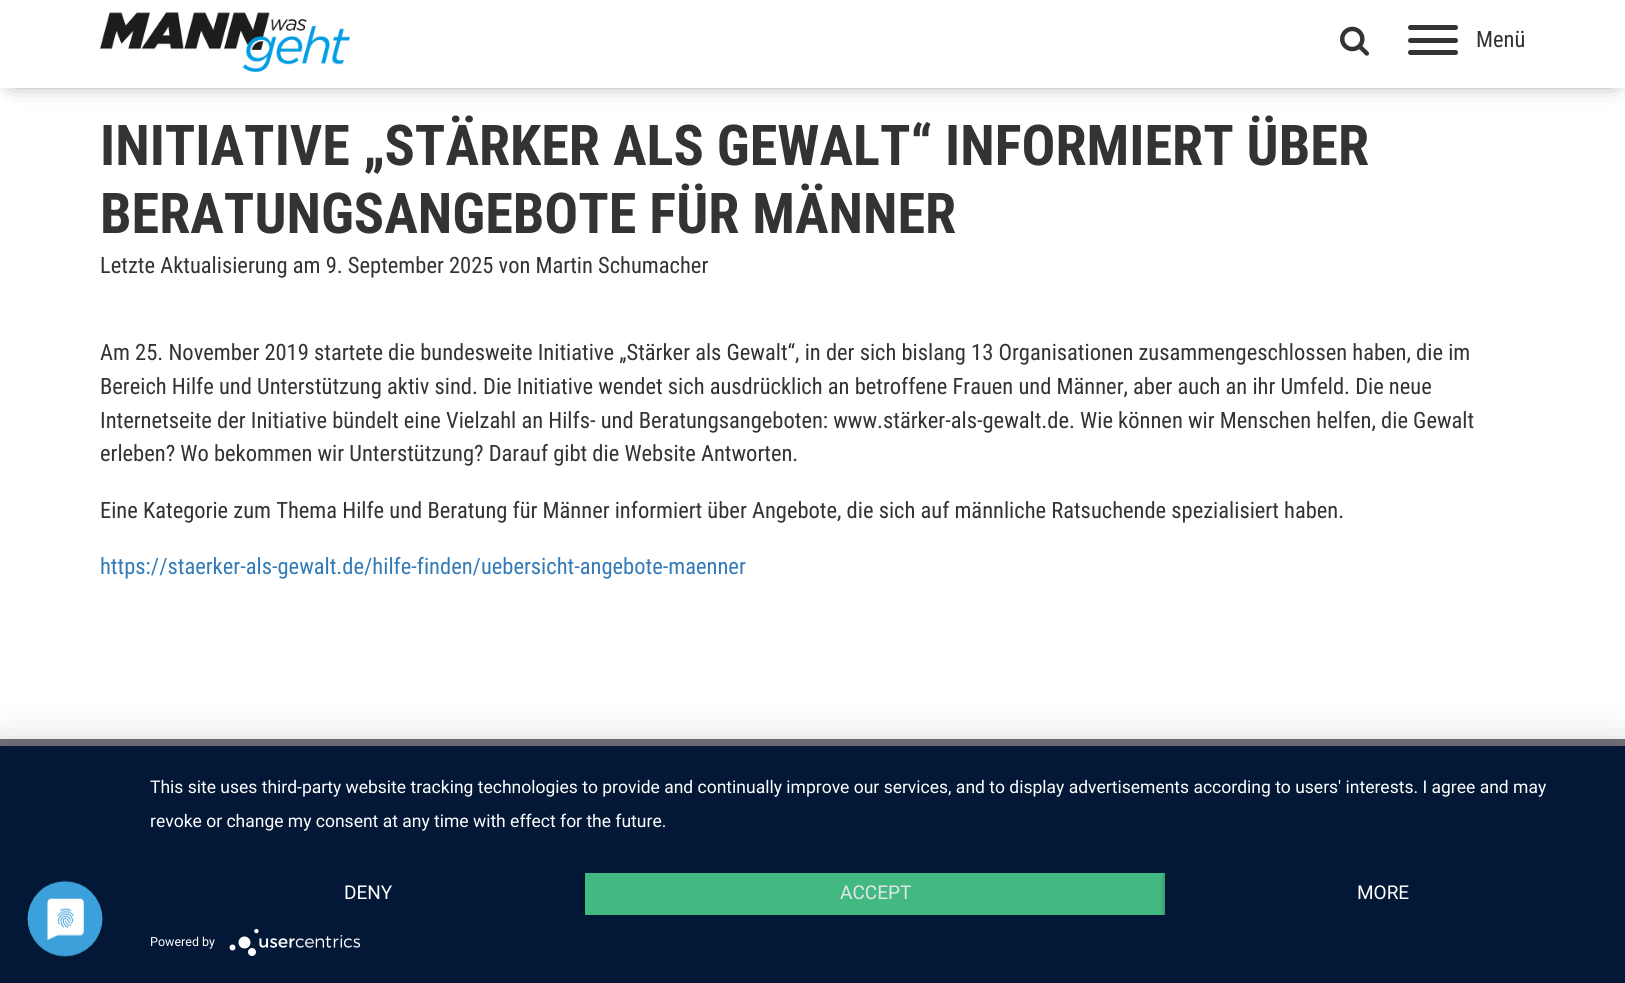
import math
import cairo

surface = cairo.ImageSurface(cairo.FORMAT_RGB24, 1625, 983)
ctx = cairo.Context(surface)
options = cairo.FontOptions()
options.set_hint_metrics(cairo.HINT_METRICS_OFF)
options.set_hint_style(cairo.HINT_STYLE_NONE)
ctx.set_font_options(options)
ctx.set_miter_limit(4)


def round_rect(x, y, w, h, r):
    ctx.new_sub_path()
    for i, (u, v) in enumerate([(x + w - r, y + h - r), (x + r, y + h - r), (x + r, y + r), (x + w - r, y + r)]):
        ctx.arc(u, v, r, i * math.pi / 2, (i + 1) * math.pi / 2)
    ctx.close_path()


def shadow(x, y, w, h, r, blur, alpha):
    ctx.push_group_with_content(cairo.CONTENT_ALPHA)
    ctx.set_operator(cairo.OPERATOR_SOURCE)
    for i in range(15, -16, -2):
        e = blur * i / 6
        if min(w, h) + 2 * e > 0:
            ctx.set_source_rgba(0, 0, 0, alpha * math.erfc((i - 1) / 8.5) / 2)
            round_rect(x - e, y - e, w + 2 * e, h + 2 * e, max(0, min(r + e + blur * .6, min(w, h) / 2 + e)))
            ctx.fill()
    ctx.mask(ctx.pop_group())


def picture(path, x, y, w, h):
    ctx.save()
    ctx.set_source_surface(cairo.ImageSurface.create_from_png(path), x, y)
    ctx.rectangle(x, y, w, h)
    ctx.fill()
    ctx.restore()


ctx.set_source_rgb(1, 1, 1)
ctx.paint()
ctx.set_source_rgb(0, 0, 0)
shadow(13, 13, 1600, 62, 0, 12.5, 1)
ctx.set_source_rgb(1, 1, 1)
ctx.rectangle(0, 0, 1625, 88)
ctx.fill()
picture("img1.png", 100, 12, 250, 61)
picture("img2.png", 1340, 26, 29, 30)
ctx.set_source_rgb(0.2, 0.2, 0.2)
round_rect(1408, 38, 50, 5, 2.5)
ctx.fill()
round_rect(1408, 25, 50, 5, 2.5)
ctx.fill()
round_rect(1408, 50, 50, 5, 2.5)
ctx.fill()
ctx.select_font_face("Roboto Condensed")
ctx.set_font_size(22.5)
ctx.move_to(1476, 47)
ctx.show_text("Menü")
ctx.select_font_face("Roboto Condensed", cairo.FONT_SLANT_NORMAL, cairo.FONT_WEIGHT_BOLD)
ctx.set_font_size(56.25)
ctx.move_to(100, 165)
ctx.show_text("INITIATIVE „STÄRKER ALS GEWALT“ INFORMIERT ÜBER")
ctx.move_to(100, 233)
ctx.show_text("BERATUNGSANGEBOTE FÜR MÄNNER")
ctx.select_font_face("Roboto Condensed")
ctx.set_font_size(22.5)
ctx.move_to(100, 273)
ctx.show_text("Letzte Aktualisierung am 9. September 2025 von Martin Schumacher")
ctx.move_to(100, 360)
ctx.show_text("Am 25. November 2019 startete die bundesweite Initiative „Stärker als Gewalt“, in der sich bislang 13 Organisationen zusammengeschlossen haben, die im")
ctx.move_to(100, 394)
ctx.show_text("Bereich Hilfe und Unterstützung aktiv sind. Die Initiative wendet sich ausdrücklich an betroffene Frauen und Männer, aber auch an ihr Umfeld. Die neue")
ctx.move_to(100, 428)
ctx.show_text("Internetseite der Initiative bündelt eine Vielzahl an Hilfs- und Beratungsangeboten: www.stärker-als-gewalt.de. Wie können wir Menschen helfen, die Gewalt")
ctx.move_to(100, 461)
ctx.show_text("erleben? Wo bekommen wir Unterstützung? Darauf gibt die Website Antworten.")
ctx.move_to(100, 518)
ctx.show_text("Eine Kategorie zum Thema Hilfe und Beratung für Männer informiert über Angebote, die sich auf männliche Ratsuchende spezialisiert haben.")
ctx.set_source_rgb(0.2, 0.478, 0.718)
ctx.move_to(100, 574)
ctx.show_text("https://staerker-als-gewalt.de/hilfe-finden/uebersicht-angebote-maenner")
ctx.set_source_rgb(0.463, 0.459, 0.49)
ctx.rectangle(0, 739, 1625, 7)
ctx.fill()
ctx.set_source_rgb(0, 0, 0)
shadow(0, 754, 1625, 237, 0, 22.5, 0.3)
ctx.set_source_rgb(0.008, 0.094, 0.212)
ctx.rectangle(0, 746, 1625, 237)
ctx.fill()
picture("img3.png", 26, 880, 78, 78)
ctx.select_font_face("Roboto")
ctx.set_font_size(17.5)
ctx.set_source_rgb(1, 1, 1)
ctx.move_to(150, 793)
ctx.show_text("This site uses third-party website tracking technologies to provide and continually improve our services, and to display advertisements according to users' interests. I agree and may")
ctx.move_to(150, 827)
ctx.show_text("revoke or change my consent at any time with effect for the future.")
ctx.set_font_size(19)
ctx.move_to(344, 899)
ctx.show_text("DENY")
ctx.save()
ctx.rectangle(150, 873, 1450, 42)
ctx.clip()
ctx.set_source_rgb(0, 0, 0)
shadow(585, 874, 580, 42, 0, 2.5, 0.4)
ctx.restore()
ctx.set_source_rgb(0.259, 0.725, 0.514)
ctx.rectangle(585, 873, 580, 42)
ctx.fill()
ctx.set_source_rgb(0.902, 0.902, 0.902)
ctx.move_to(840, 899)
ctx.show_text("ACCEPT")
ctx.save()
ctx.rectangle(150, 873, 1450, 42)
ctx.clip()
ctx.set_source_rgb(0, 0, 0)
shadow(1165, 874, 435, 42, 0, 2.5, 0.4)
ctx.restore()
ctx.set_source_rgb(0.008, 0.094, 0.212)
ctx.rectangle(1165, 873, 435, 42)
ctx.fill()
ctx.set_source_rgb(1, 1, 1)
ctx.move_to(1357, 899)
ctx.show_text("MORE")
ctx.set_font_size(12.5)
ctx.move_to(150, 946)
ctx.show_text("Powered by")
picture("img4.png", 229, 928, 132, 28)
surface.write_to_png("page.png")
